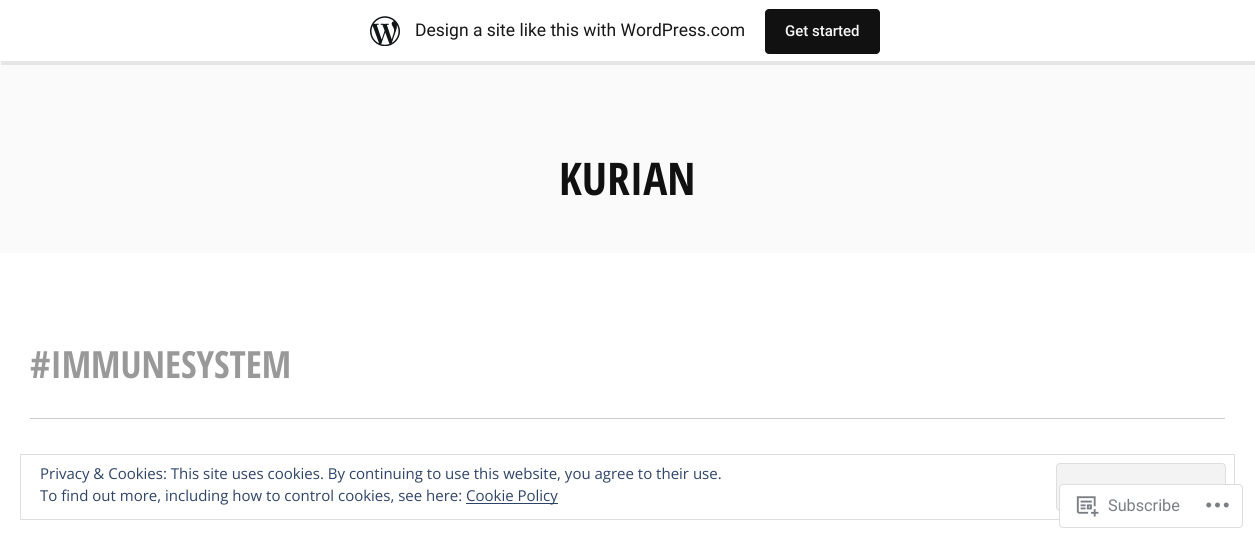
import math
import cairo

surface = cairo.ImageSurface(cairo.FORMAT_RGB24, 1255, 539)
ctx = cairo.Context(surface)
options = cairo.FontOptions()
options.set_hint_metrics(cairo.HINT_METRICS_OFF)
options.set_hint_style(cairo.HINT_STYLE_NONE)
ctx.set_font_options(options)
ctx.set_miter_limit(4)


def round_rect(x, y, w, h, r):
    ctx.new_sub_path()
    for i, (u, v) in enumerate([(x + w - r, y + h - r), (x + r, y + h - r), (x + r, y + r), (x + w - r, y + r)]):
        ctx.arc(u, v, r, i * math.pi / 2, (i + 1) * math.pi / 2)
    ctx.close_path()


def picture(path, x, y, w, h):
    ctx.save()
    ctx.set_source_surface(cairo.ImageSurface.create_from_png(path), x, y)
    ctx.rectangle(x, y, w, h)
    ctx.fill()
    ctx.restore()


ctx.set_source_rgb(1, 1, 1)
ctx.paint()
ctx.set_source_rgb(0.98, 0.98, 0.98)
ctx.rectangle(0, 61, 1255, 192)
ctx.fill()
ctx.set_source_rgba(0, 0, 0, 0.08)
ctx.new_path()
ctx.move_to(1, 61)
ctx.line_to(1, 65)
ctx.line_to(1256, 65)
ctx.line_to(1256, 4)
ctx.line_to(1255, 4)
ctx.line_to(1255, 61)
ctx.close_path()
ctx.fill()
picture("img1.png", 370, 16, 30, 30)
ctx.select_font_face("Roboto")
ctx.set_font_size(17.5)
ctx.set_source_rgb(0.09, 0.09, 0.09)
ctx.move_to(415, 36)
ctx.show_text("Design a site like this with WordPress.com")
ctx.set_source_rgb(0.067, 0.067, 0.067)
round_rect(765, 9, 115, 45, 4)
ctx.fill()
ctx.select_font_face("Roboto Medium")
ctx.set_font_size(15)
ctx.set_source_rgb(0.965, 0.969, 0.969)
ctx.move_to(785, 36)
ctx.show_text("Get started")
ctx.select_font_face("Open Sans Condensed", cairo.FONT_SLANT_NORMAL, cairo.FONT_WEIGHT_BOLD)
ctx.set_font_size(45)
ctx.set_source_rgb(0.067, 0.067, 0.067)
ctx.move_to(559, 195)
ctx.show_text("KURIAN")
ctx.set_source_rgb(0.8, 0.8, 0.8)
ctx.rectangle(30, 418, 1195, 1)
ctx.fill()
ctx.set_font_size(37.5)
ctx.set_source_rgb(0.6, 0.6, 0.6)
ctx.move_to(30, 378)
ctx.show_text("#IMMUNESYSTEM")
ctx.rectangle(20.5, 454.5, 1214, 65)
ctx.set_source_rgb(0.871, 0.871, 0.871)
ctx.set_line_width(1)
ctx.stroke()
ctx.select_font_face("Open Sans")
ctx.set_font_size(15)
ctx.set_source_rgb(0.18, 0.267, 0.404)
ctx.move_to(40, 479)
ctx.show_text("Privacy & Cookies: This site uses cookies. By continuing to use this website, you agree to their use.")
ctx.set_source_rgb(0.953, 0.953, 0.953)
round_rect(1056.5, 463.5, 169, 47, 3.5)
ctx.fill_preserve()
ctx.set_source_rgb(0.871, 0.871, 0.871)
ctx.stroke()
ctx.set_source_rgb(0.18, 0.267, 0.404)
ctx.move_to(40, 501)
ctx.show_text("To find out more, including how to control cookies, see here:")
ctx.rectangle(466, 503, 92, 1)
ctx.fill()
ctx.move_to(466, 501)
ctx.show_text("Cookie Policy")
ctx.set_source_rgba(1, 1, 1, 0.98)
round_rect(1059, 484, 184, 44, 4)
ctx.fill()
round_rect(1059.5, 484.5, 183, 43, 3.5)
ctx.set_source_rgba(0.863, 0.863, 0.871, 0.98)
ctx.stroke()
picture("img2.png", 1076, 496, 23, 21)
ctx.select_font_face("Roboto")
ctx.set_font_size(16.25)
ctx.set_source_rgb(0.482, 0.498, 0.518)
ctx.move_to(1108, 511)
ctx.show_text("Subscribe")
picture("img3.png", 1206, 502, 23, 6)
surface.write_to_png("page.png")
